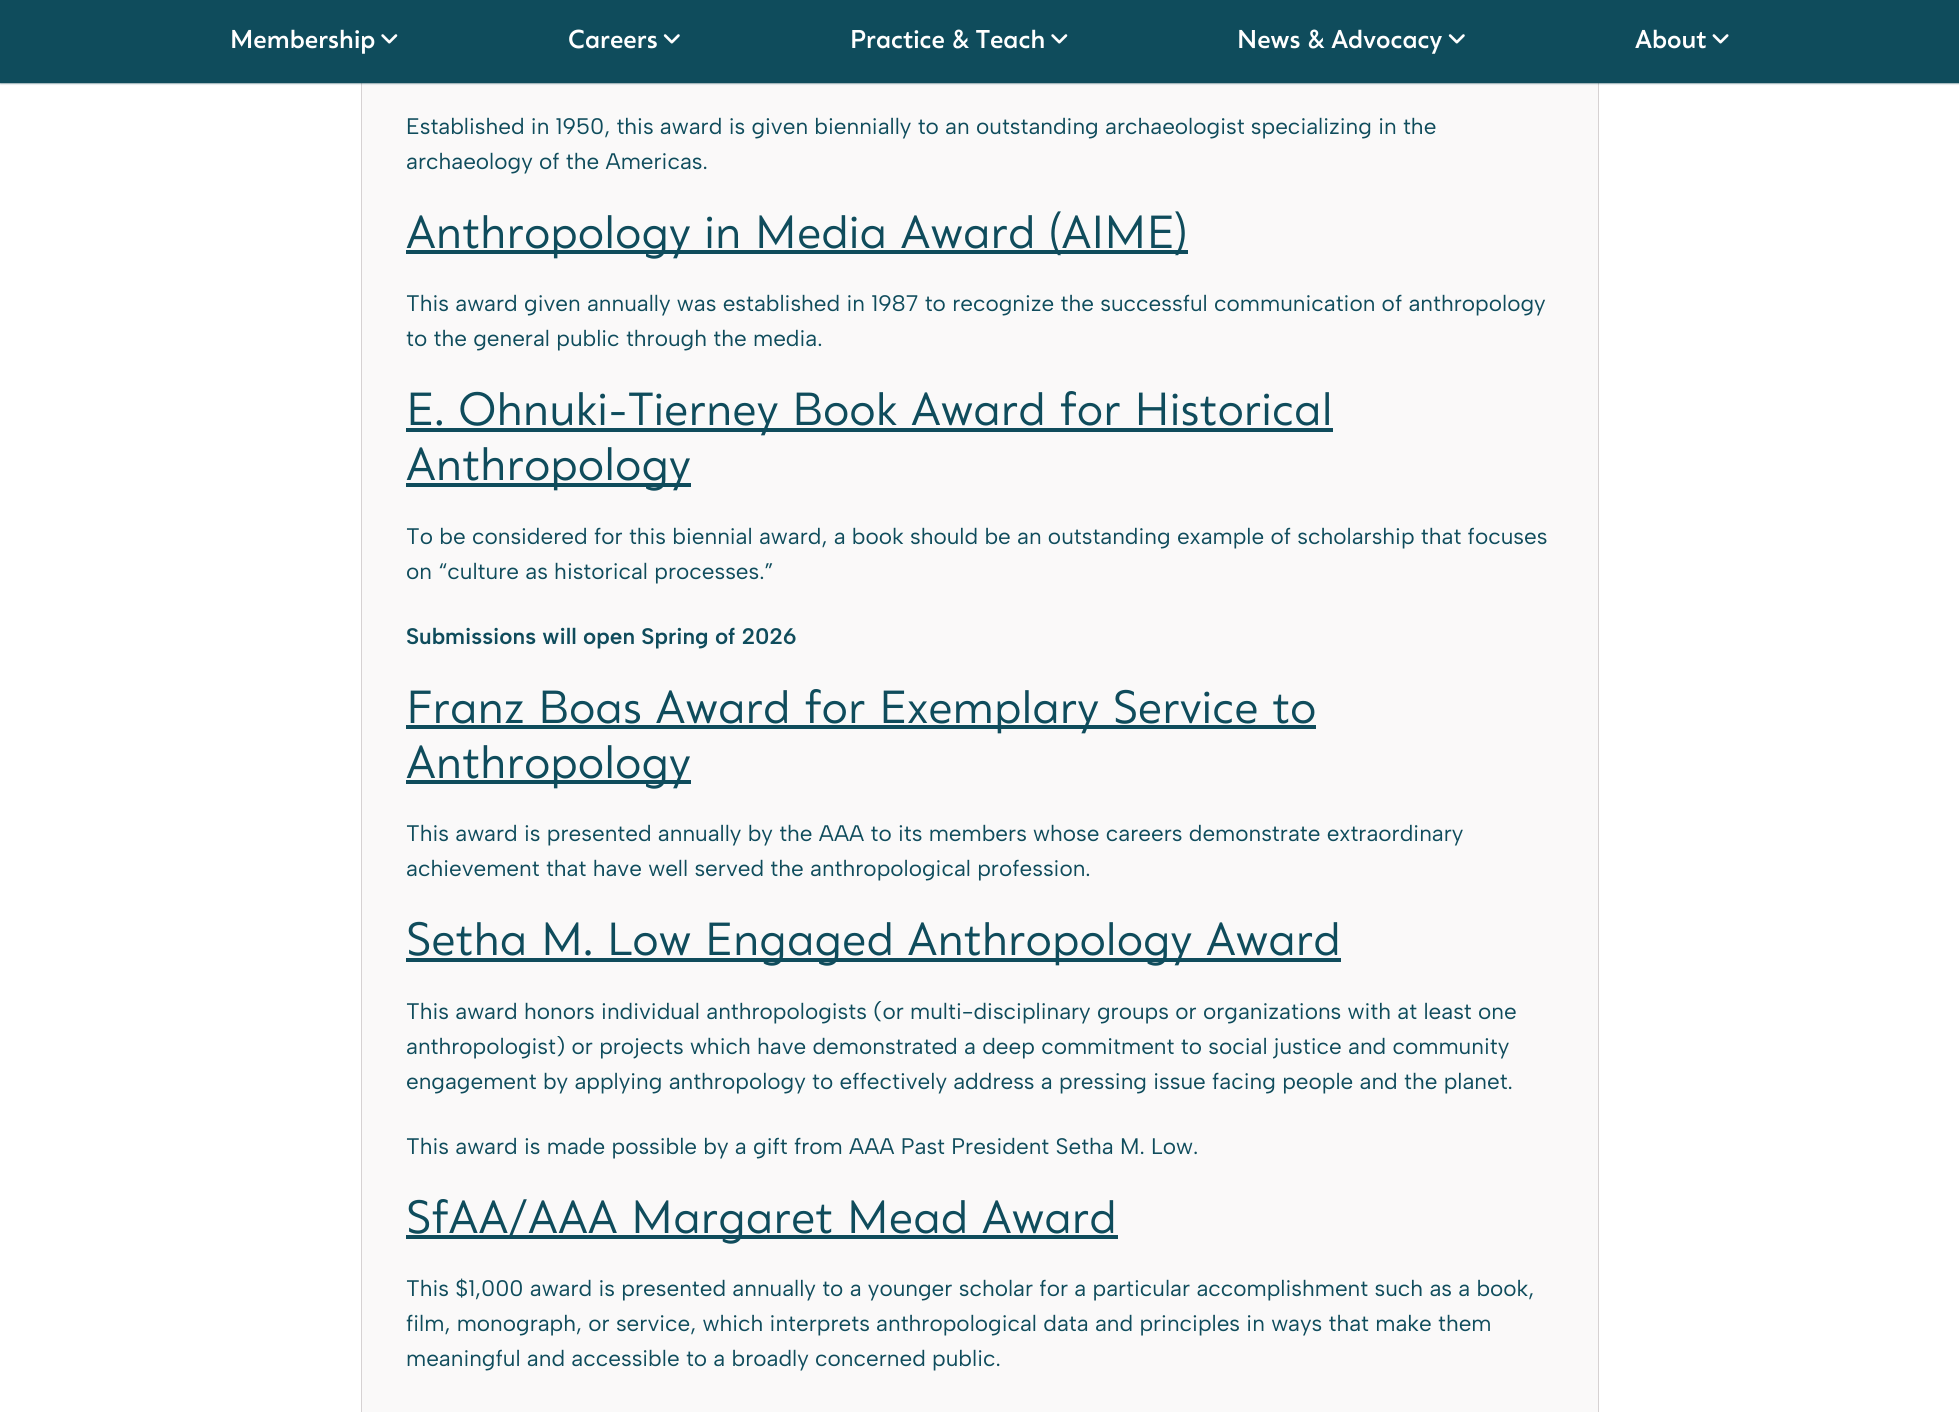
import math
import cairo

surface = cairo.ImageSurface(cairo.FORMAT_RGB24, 1959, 1412)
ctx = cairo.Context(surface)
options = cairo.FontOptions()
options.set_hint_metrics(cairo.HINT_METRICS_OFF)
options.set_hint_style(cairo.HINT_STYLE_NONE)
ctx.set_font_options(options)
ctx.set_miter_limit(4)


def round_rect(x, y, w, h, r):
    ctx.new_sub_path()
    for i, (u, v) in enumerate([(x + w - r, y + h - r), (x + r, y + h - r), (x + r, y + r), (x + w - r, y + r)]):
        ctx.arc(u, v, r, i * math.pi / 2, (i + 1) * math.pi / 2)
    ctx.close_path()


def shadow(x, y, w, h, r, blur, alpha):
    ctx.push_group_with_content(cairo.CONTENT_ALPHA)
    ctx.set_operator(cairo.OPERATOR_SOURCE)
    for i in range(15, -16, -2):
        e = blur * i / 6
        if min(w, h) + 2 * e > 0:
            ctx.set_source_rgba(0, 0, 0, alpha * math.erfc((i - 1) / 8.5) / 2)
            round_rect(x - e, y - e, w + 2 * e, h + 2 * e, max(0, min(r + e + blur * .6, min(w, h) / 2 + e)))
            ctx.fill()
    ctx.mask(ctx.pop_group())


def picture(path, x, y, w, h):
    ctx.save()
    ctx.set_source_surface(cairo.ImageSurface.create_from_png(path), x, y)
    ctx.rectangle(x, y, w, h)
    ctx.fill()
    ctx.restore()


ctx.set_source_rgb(1, 1, 1)
ctx.paint()
ctx.set_source_rgb(0.98, 0.976, 0.976)
ctx.rectangle(362, 83, 1236, 1329)
ctx.fill()
ctx.set_source_rgb(0.839, 0.824, 0.827)
ctx.rectangle(1598, 83, 1, 1329)
ctx.fill()
ctx.rectangle(361, 83, 1, 1329)
ctx.fill()
ctx.set_source_rgb(0.008, 0.227, 0.282)
shadow(0, 0, 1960, 83, 0, 1, 1)
ctx.set_source_rgb(0.059, 0.298, 0.361)
ctx.rectangle(0, 0, 1959, 83)
ctx.fill()
ctx.select_font_face("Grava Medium")
ctx.set_font_size(25)
ctx.set_source_rgb(1, 1, 1)
ctx.move_to(230, 48)
ctx.show_text("Membership")
picture("img1.png", 381, 34, 17, 10)
ctx.move_to(568, 48)
ctx.show_text("Careers")
picture("img2.png", 663, 34, 17, 10)
ctx.move_to(850, 48)
ctx.show_text("Practice & Teach")
picture("img1.png", 1051, 34, 17, 10)
ctx.move_to(1237, 48)
ctx.show_text("News & Advocacy")
picture("img2.png", 1448, 34, 17, 10)
ctx.move_to(1635, 48)
ctx.show_text("About")
picture("img3.png", 1712, 34, 17, 10)
ctx.select_font_face("Albert Sans")
ctx.set_font_size(22.5)
ctx.set_source_rgb(0.059, 0.298, 0.361)
ctx.move_to(406, 134)
ctx.show_text("Established in 1950, this award is given biennially to an outstanding archaeologist specializing in the")
ctx.move_to(406, 169)
ctx.show_text("archaeology of the Americas.")
ctx.rectangle(406, 250, 782, 4)
ctx.fill()
ctx.select_font_face("Grava Light")
ctx.set_font_size(45)
ctx.move_to(406, 248)
ctx.show_text("Anthropology in Media Award (AIME)")
ctx.select_font_face("Albert Sans")
ctx.set_font_size(22.5)
ctx.move_to(406, 311)
ctx.show_text("This award given annually was established in 1987 to recognize the successful communication of anthropology")
ctx.move_to(406, 346)
ctx.show_text("to the general public through the media.")
ctx.rectangle(406, 428, 927, 4)
ctx.fill()
ctx.select_font_face("Grava Light")
ctx.set_font_size(45)
ctx.move_to(406, 425)
ctx.show_text("E. Ohnuki-Tierney Book Award for Historical")
ctx.rectangle(406, 483, 285, 4)
ctx.fill()
ctx.move_to(406, 480)
ctx.show_text("Anthropology")
ctx.select_font_face("Albert Sans")
ctx.set_font_size(22.5)
ctx.move_to(406, 544)
ctx.show_text("To be considered for this biennial award, a book should be an outstanding example of scholarship that focuses")
ctx.move_to(406, 579)
ctx.show_text("on “culture as historical processes.”")
ctx.select_font_face("Albert Sans SemiBold")
ctx.move_to(406, 644)
ctx.show_text("Submissions will open Spring of 2026")
ctx.rectangle(406, 725, 910, 4)
ctx.fill()
ctx.select_font_face("Grava Light")
ctx.set_font_size(45)
ctx.move_to(406, 723)
ctx.show_text("Franz Boas Award for Exemplary Service to")
ctx.rectangle(406, 780, 285, 4)
ctx.fill()
ctx.move_to(406, 778)
ctx.show_text("Anthropology")
ctx.select_font_face("Albert Sans")
ctx.set_font_size(22.5)
ctx.move_to(406, 841)
ctx.show_text("This award is presented annually by the AAA to its members whose careers demonstrate extraordinary")
ctx.move_to(406, 876)
ctx.show_text("achievement that have well served the anthropological profession.")
ctx.rectangle(406, 958, 935, 4)
ctx.fill()
ctx.select_font_face("Grava Light")
ctx.set_font_size(45)
ctx.move_to(406, 955)
ctx.show_text("Setha M. Low Engaged Anthropology Award")
ctx.select_font_face("Albert Sans")
ctx.set_font_size(22.5)
ctx.move_to(406, 1019)
ctx.show_text("This award honors individual anthropologists (or multi-disciplinary groups or organizations with at least one")
ctx.move_to(406, 1054)
ctx.show_text("anthropologist) or projects which have demonstrated a deep commitment to social justice and community")
ctx.move_to(406, 1089)
ctx.show_text("engagement by applying anthropology to effectively address a pressing issue facing people and the planet.")
ctx.move_to(406, 1154)
ctx.show_text("This award is made possible by a gift from AAA Past President Setha M. Low.")
ctx.rectangle(406, 1235, 712, 4)
ctx.fill()
ctx.select_font_face("Grava Light")
ctx.set_font_size(45)
ctx.move_to(406, 1233)
ctx.show_text("SfAA/AAA Margaret Mead Award")
ctx.select_font_face("Albert Sans")
ctx.set_font_size(22.5)
ctx.move_to(406, 1296)
ctx.show_text("This $1,000 award is presented annually to a younger scholar for a particular accomplishment such as a book,")
ctx.move_to(406, 1331)
ctx.show_text("film, monograph, or service, which interprets anthropological data and principles in ways that make them")
ctx.move_to(406, 1366)
ctx.show_text("meaningful and accessible to a broadly concerned public.")
surface.write_to_png("page.png")
